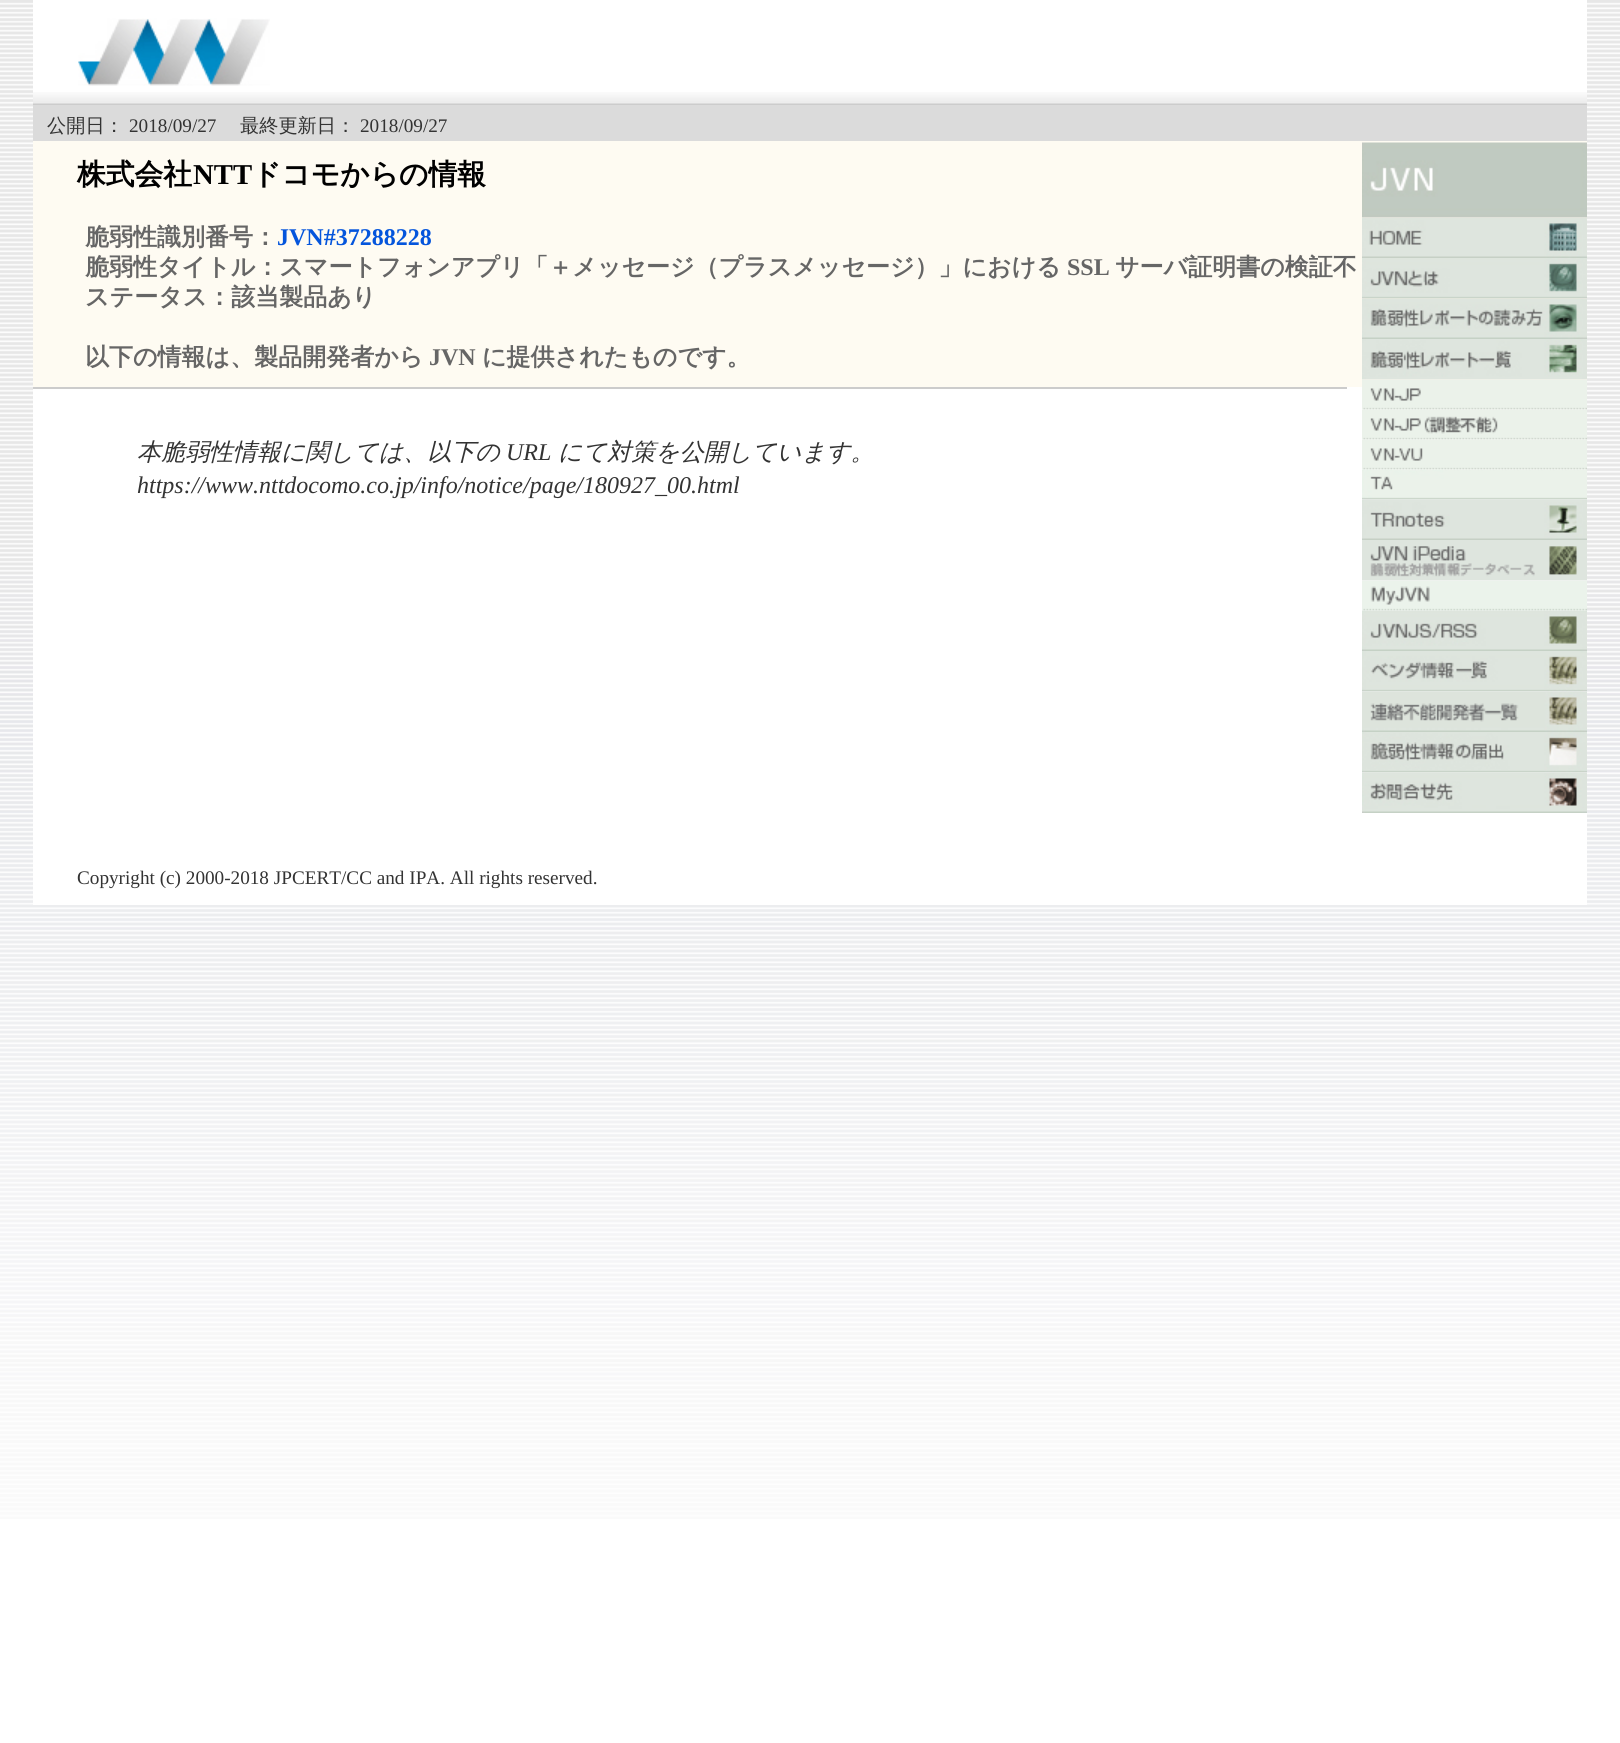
import math
import cairo

surface = cairo.ImageSurface(cairo.FORMAT_RGB24, 1620, 1743)
ctx = cairo.Context(surface)
options = cairo.FontOptions()
options.set_hint_metrics(cairo.HINT_METRICS_OFF)
options.set_hint_style(cairo.HINT_STYLE_NONE)
ctx.set_font_options(options)
ctx.set_miter_limit(4)


def picture(path, x, y, w, h):
    ctx.save()
    ctx.set_source_surface(cairo.ImageSurface.create_from_png(path), x, y)
    ctx.rectangle(x, y, w, h)
    ctx.fill()
    ctx.restore()


ctx.set_source_rgb(1, 1, 1)
ctx.paint()
picture("img1.png", 0, 0, 1620, 1519)
ctx.set_source_rgb(1, 1, 1)
ctx.rectangle(33, 0, 1554, 92)
ctx.fill()
picture("img2.png", 33, 92, 1554, 13)
picture("img3.png", 78, 18, 192, 68)
ctx.rectangle(33, 387, 1554, 518)
ctx.fill()
ctx.set_source_rgb(0.859, 0.859, 0.859)
ctx.rectangle(33, 105, 1554, 36)
ctx.fill()
ctx.select_font_face("WenQuanYi Zen Hei Medium")
ctx.set_font_size(19.2)
ctx.set_source_rgb(0.2, 0.2, 0.2)
ctx.move_to(47, 132)
ctx.show_text("公開日：")
ctx.select_font_face("Liberation Serif")
ctx.move_to(129, 132)
ctx.show_text("2018/09/27")
ctx.select_font_face("WenQuanYi Zen Hei Medium")
ctx.move_to(240, 132)
ctx.show_text("最終更新日：")
ctx.select_font_face("Liberation Serif")
ctx.move_to(360, 132)
ctx.show_text("2018/09/27")
ctx.set_source_rgb(0.996, 0.984, 0.949)
ctx.rectangle(33, 141, 1554, 246)
ctx.fill()
ctx.select_font_face("WenQuanYi Zen Hei", cairo.FONT_SLANT_NORMAL, cairo.FONT_WEIGHT_BOLD)
ctx.set_font_size(28.75)
ctx.set_source_rgb(0, 0, 0)
ctx.move_to(77, 184)
ctx.show_text("株式会社")
ctx.select_font_face("Liberation Serif", cairo.FONT_SLANT_NORMAL, cairo.FONT_WEIGHT_BOLD)
ctx.move_to(193, 184)
ctx.show_text("NTT")
ctx.select_font_face("WenQuanYi Zen Hei", cairo.FONT_SLANT_NORMAL, cairo.FONT_WEIGHT_BOLD)
ctx.move_to(252, 184)
ctx.show_text("ドコモからの情報")
ctx.set_font_size(24)
ctx.set_source_rgb(0.4, 0.4, 0.4)
ctx.move_to(85, 245)
ctx.show_text("脆弱性識別番号：")
ctx.select_font_face("Liberation Serif", cairo.FONT_SLANT_NORMAL, cairo.FONT_WEIGHT_BOLD)
ctx.set_source_rgb(0.016, 0.333, 0.863)
ctx.move_to(277, 245)
ctx.show_text("JVN#37288228")
ctx.select_font_face("WenQuanYi Zen Hei", cairo.FONT_SLANT_NORMAL, cairo.FONT_WEIGHT_BOLD)
ctx.set_source_rgb(0.4, 0.4, 0.4)
ctx.move_to(85, 275)
ctx.show_text("脆弱性タイトル：スマートフォンアプリ「＋メッセージ（プラスメッセージ）」における")
ctx.select_font_face("Liberation Serif", cairo.FONT_SLANT_NORMAL, cairo.FONT_WEIGHT_BOLD)
ctx.move_to(1067, 275)
ctx.show_text("SSL")
ctx.select_font_face("WenQuanYi Zen Hei", cairo.FONT_SLANT_NORMAL, cairo.FONT_WEIGHT_BOLD)
ctx.move_to(1115, 275)
ctx.show_text("サーバ証明書の検証不")
ctx.move_to(85, 305)
ctx.show_text("ステータス：該当製品あり")
ctx.move_to(85, 365)
ctx.show_text("以下の情報は、製品開発者から")
ctx.select_font_face("Liberation Serif", cairo.FONT_SLANT_NORMAL, cairo.FONT_WEIGHT_BOLD)
ctx.move_to(429, 365)
ctx.show_text("JVN")
ctx.select_font_face("WenQuanYi Zen Hei", cairo.FONT_SLANT_NORMAL, cairo.FONT_WEIGHT_BOLD)
ctx.move_to(482, 365)
ctx.show_text("に提供されたものです。")
ctx.set_source_rgb(0.8, 0.8, 0.8)
ctx.rectangle(33, 387, 1314, 2)
ctx.fill()
ctx.select_font_face("WenQuanYi Zen Hei Medium", cairo.FONT_SLANT_ITALIC)
ctx.set_source_rgb(0.2, 0.2, 0.2)
ctx.move_to(137, 460)
ctx.show_text("本脆弱性情報に関しては、以下の")
ctx.select_font_face("Liberation Serif", cairo.FONT_SLANT_ITALIC)
ctx.move_to(506, 460)
ctx.show_text("URL")
ctx.select_font_face("WenQuanYi Zen Hei Medium", cairo.FONT_SLANT_ITALIC)
ctx.move_to(558, 460)
ctx.show_text("にて対策を公開しています。")
ctx.select_font_face("Liberation Serif", cairo.FONT_SLANT_ITALIC)
ctx.move_to(137, 493)
ctx.show_text("https://www.nttdocomo.co.jp/info/notice/page/180927_00.html")
picture("img4.png", 1362, 142, 225, 76)
picture("img5.png", 1362, 218, 225, 40)
picture("img6.png", 1362, 258, 225, 41)
picture("img7.png", 1362, 299, 225, 40)
picture("img8.png", 1362, 339, 225, 41)
picture("img9.png", 1362, 380, 225, 30)
picture("img10.png", 1362, 409, 225, 31)
picture("img11.png", 1362, 439, 225, 31)
picture("img12.png", 1362, 469, 225, 31)
picture("img13.png", 1362, 500, 225, 40)
picture("img14.png", 1362, 540, 225, 41)
picture("img15.png", 1362, 581, 225, 30)
picture("img16.png", 1362, 610, 225, 41)
picture("img17.png", 1362, 651, 225, 41)
picture("img18.png", 1362, 692, 225, 40)
picture("img19.png", 1362, 732, 225, 41)
picture("img20.png", 1362, 773, 225, 40)
ctx.select_font_face("Liberation Serif")
ctx.set_font_size(19.2)
ctx.move_to(77, 884)
ctx.show_text("Copyright (c) 2000-2018 JPCERT/CC and IPA. All rights reserved.")
surface.write_to_png("page.png")
